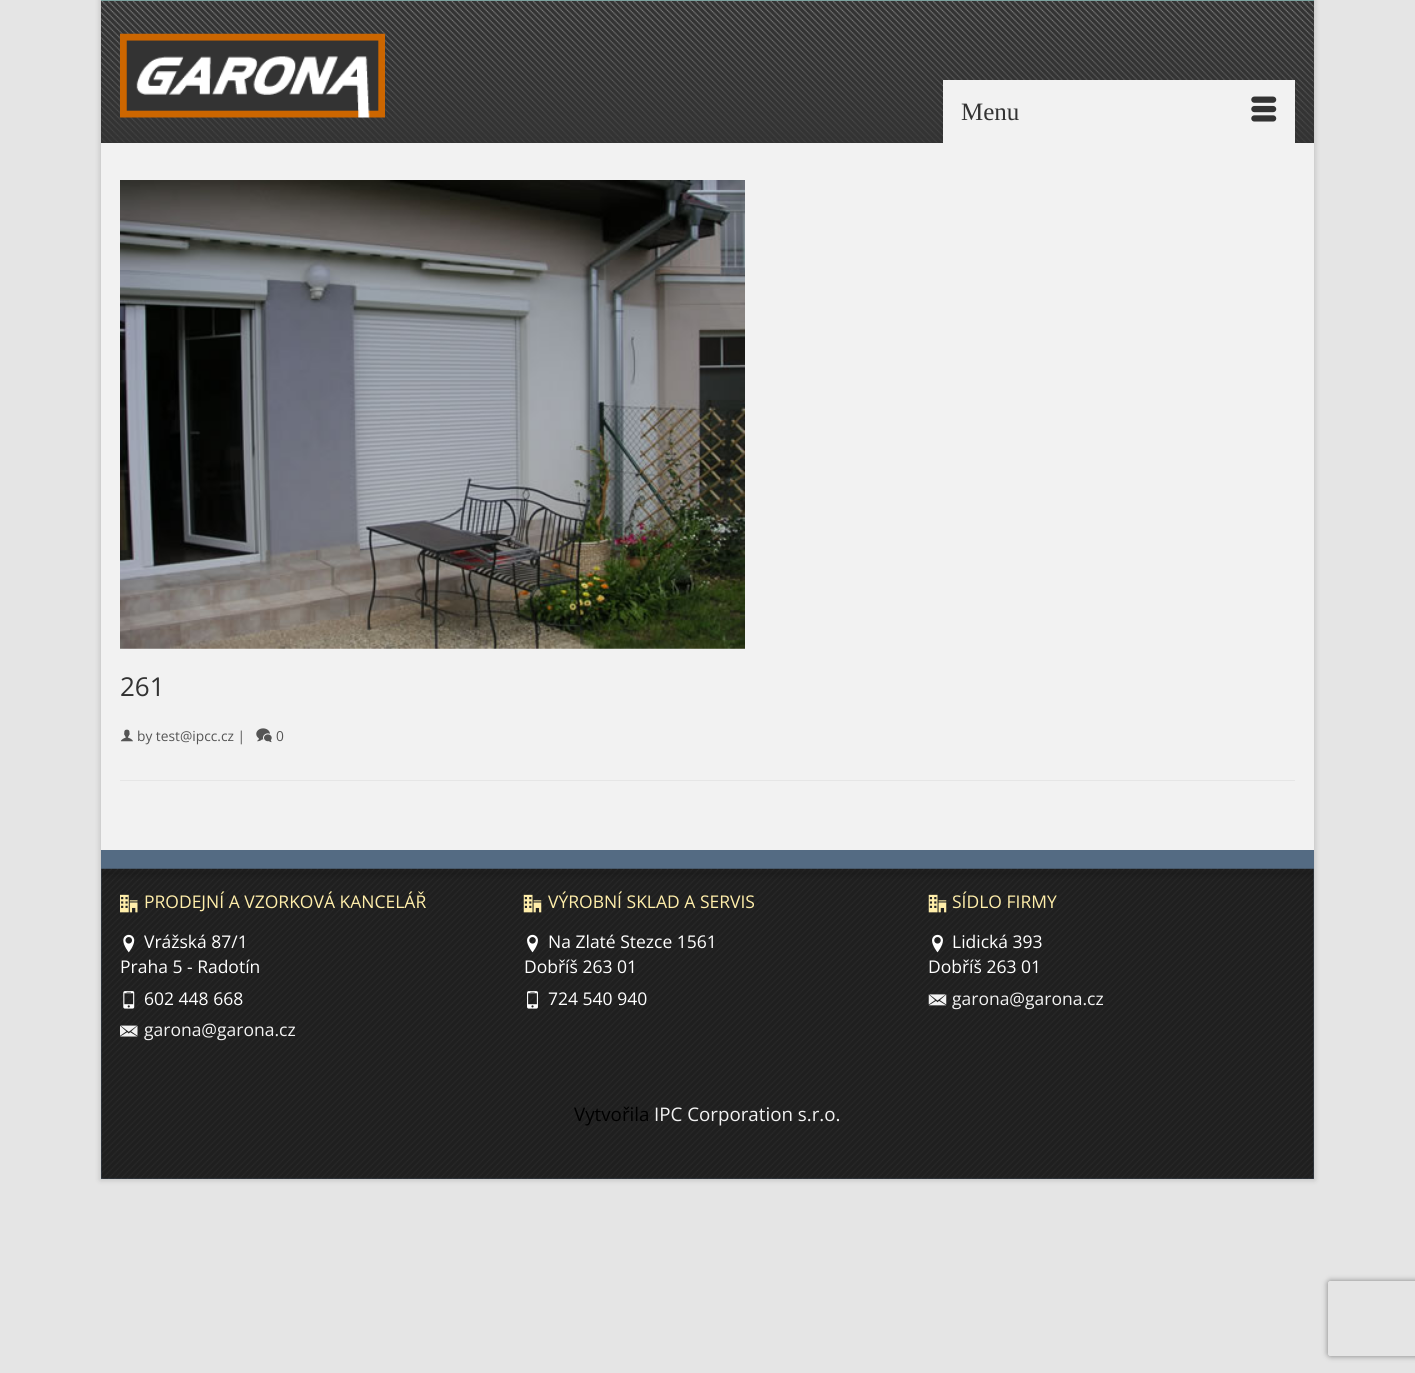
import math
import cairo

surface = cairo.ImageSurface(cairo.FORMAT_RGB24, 1415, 1373)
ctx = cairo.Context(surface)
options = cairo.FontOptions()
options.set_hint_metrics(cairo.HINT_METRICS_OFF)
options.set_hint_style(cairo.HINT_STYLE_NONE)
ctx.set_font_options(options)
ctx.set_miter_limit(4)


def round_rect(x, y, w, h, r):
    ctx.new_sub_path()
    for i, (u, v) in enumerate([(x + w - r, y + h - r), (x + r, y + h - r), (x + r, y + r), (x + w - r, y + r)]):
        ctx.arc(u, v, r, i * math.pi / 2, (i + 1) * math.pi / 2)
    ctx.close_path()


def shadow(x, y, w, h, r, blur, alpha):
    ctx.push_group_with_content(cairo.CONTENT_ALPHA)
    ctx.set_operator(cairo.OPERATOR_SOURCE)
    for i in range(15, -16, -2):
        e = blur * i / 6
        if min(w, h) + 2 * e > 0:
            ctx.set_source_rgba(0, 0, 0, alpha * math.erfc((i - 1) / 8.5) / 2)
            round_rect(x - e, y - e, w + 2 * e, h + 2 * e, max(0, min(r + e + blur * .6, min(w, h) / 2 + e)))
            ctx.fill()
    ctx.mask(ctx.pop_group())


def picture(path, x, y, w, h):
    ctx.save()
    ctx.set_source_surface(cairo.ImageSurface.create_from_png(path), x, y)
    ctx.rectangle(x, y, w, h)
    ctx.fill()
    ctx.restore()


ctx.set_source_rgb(0.898, 0.898, 0.898)
ctx.paint()
ctx.set_source_rgb(0, 0, 0)
shadow(100, -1, 1215, 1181, 0, 3, 0.16)
ctx.set_source_rgb(0.2, 0.2, 0.2)
ctx.rectangle(101, 1, 1213, 142)
ctx.fill()
picture("img1.png", 101, 1, 1213, 142)
ctx.set_source_rgb(0.482, 0.639, 0.624)
ctx.rectangle(101, 0, 1213, 1)
ctx.fill()
picture("img2.png", 120, 33, 265, 85)
ctx.set_source_rgb(0.949, 0.949, 0.949)
ctx.rectangle(943, 80, 352, 63)
ctx.fill()
ctx.select_font_face("Liberation Serif")
ctx.set_font_size(25)
ctx.set_source_rgb(0.2, 0.2, 0.2)
ctx.move_to(961, 120)
ctx.show_text("Menu")
picture("img3.png", 1251, 96, 26, 26)
ctx.set_source_rgb(0.949, 0.949, 0.949)
ctx.rectangle(101, 143, 1213, 707)
ctx.fill()
picture("img4.png", 120, 180, 625, 469)
ctx.select_font_face("Open Sans")
ctx.set_font_size(26)
ctx.set_source_rgb(0.2, 0.2, 0.2)
ctx.move_to(120, 696)
ctx.show_text("261")
picture("img5.png", 120, 729, 13, 13)
ctx.set_font_size(13.75)
ctx.set_source_rgb(0.333, 0.333, 0.333)
ctx.move_to(137, 741)
ctx.show_text("by test@ipcc.cz |")
picture("img6.png", 256, 728, 16, 15)
ctx.move_to(276, 741)
ctx.show_text("0")
ctx.set_source_rgb(0.902, 0.902, 0.902)
ctx.rectangle(120, 780, 1175, 1)
ctx.fill()
ctx.set_source_rgb(0.329, 0.42, 0.514)
ctx.rectangle(101, 850, 1213, 329)
ctx.fill()
picture("img7.png", 101, 868, 1213, 311)
picture("img8.png", 120, 894, 18, 19)
ctx.set_font_size(17.5)
ctx.set_source_rgb(1, 0.933, 0.667)
ctx.move_to(144, 908)
ctx.show_text("PRODEJNÍ A VZORKOVÁ KANCELÁŘ")
picture("img9.png", 123, 934, 12, 19)
ctx.set_source_rgb(1, 1, 1)
ctx.move_to(144, 948)
ctx.show_text("Vrážská 87/1")
ctx.move_to(120, 973)
ctx.show_text("Praha 5 - Radotín")
picture("img10.png", 123, 991, 12, 18)
ctx.move_to(144, 1005)
ctx.show_text("602 448 668")
picture("img11.png", 120, 1025, 18, 12)
ctx.set_source_rgb(0.949, 0.949, 0.949)
ctx.move_to(144, 1036)
ctx.show_text("garona@garona.cz")
picture("img12.png", 523, 894, 19, 19)
ctx.set_source_rgb(1, 0.933, 0.667)
ctx.move_to(548, 908)
ctx.show_text("VÝROBNÍ SKLAD A SERVIS")
picture("img13.png", 527, 934, 11, 19)
ctx.set_source_rgb(1, 1, 1)
ctx.move_to(548, 948)
ctx.show_text("Na Zlaté Stezce 1561")
ctx.move_to(524, 973)
ctx.show_text("Dobříš 263 01")
picture("img14.png", 527, 991, 11, 18)
ctx.move_to(548, 1005)
ctx.show_text("724 540 940")
picture("img15.png", 928, 894, 19, 19)
ctx.set_source_rgb(1, 0.933, 0.667)
ctx.move_to(952, 908)
ctx.show_text("SÍDLO FIRMY")
picture("img16.png", 932, 934, 11, 19)
ctx.set_source_rgb(1, 1, 1)
ctx.move_to(952, 948)
ctx.show_text("Lidická 393")
ctx.move_to(928, 973)
ctx.show_text("Dobříš 263 01")
picture("img17.png", 928, 994, 19, 12)
ctx.set_source_rgb(0.949, 0.949, 0.949)
ctx.move_to(952, 1005)
ctx.show_text("garona@garona.cz")
ctx.set_font_size(18.75)
ctx.set_source_rgb(0, 0, 0)
ctx.move_to(574, 1121)
ctx.show_text("Vytvořila")
ctx.set_source_rgb(0.949, 0.949, 0.949)
ctx.move_to(654, 1121)
ctx.show_text("IPC Corporation s.r.o.")
ctx.save()
ctx.set_fill_rule(cairo.FILL_RULE_EVEN_ODD)
ctx.new_path()
ctx.move_to(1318, 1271)
ctx.line_to(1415, 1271)
ctx.line_to(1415, 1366)
ctx.line_to(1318, 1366)
ctx.close_path()
ctx.move_to(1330.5, 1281)
ctx.line_to(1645.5, 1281)
ctx.curve_to(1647, 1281, 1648, 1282, 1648, 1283.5)
ctx.line_to(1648, 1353.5)
ctx.curve_to(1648, 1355, 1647, 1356, 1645.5, 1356)
ctx.line_to(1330.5, 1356)
ctx.curve_to(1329, 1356, 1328, 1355, 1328, 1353.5)
ctx.line_to(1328, 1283.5)
ctx.curve_to(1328, 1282, 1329, 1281, 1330.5, 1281)
ctx.close_path()
ctx.clip()
ctx.set_source_rgb(0.502, 0.502, 0.502)
shadow(1328, 1281, 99, 75, 2.5, 3, 1)
ctx.restore()
surface.write_to_png("page.png")
